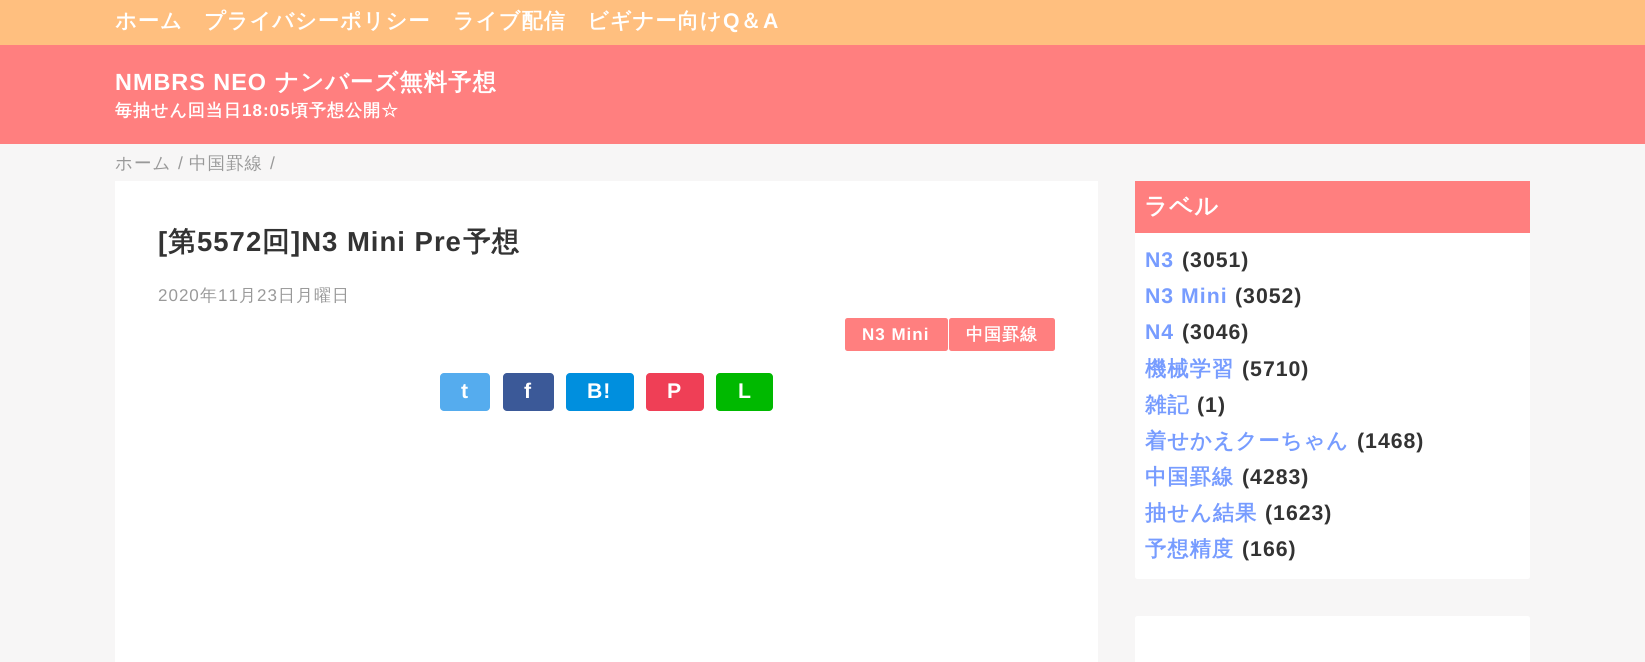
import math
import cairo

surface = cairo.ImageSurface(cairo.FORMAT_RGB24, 1645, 662)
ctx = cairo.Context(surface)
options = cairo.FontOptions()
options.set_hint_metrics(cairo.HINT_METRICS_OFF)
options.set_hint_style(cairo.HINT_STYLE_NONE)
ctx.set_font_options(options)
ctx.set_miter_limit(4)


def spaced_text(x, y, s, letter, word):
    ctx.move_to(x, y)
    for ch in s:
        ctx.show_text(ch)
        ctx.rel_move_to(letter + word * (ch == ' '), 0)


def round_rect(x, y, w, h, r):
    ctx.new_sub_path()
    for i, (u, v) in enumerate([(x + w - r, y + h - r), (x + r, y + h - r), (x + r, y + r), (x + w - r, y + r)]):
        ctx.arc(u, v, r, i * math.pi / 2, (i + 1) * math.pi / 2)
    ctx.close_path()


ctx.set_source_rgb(0.965, 0.961, 0.961)
ctx.paint()
ctx.set_source_rgb(1, 0.749, 0.498)
ctx.rectangle(0, 0, 1645, 45)
ctx.fill()
ctx.select_font_face("WenQuanYi Zen Hei", cairo.FONT_SLANT_NORMAL, cairo.FONT_WEIGHT_BOLD)
ctx.set_font_size(21.25)
ctx.set_source_rgb(1, 1, 1)
spaced_text(115, 28, "ホーム", 1, 0)
spaced_text(204, 28, "プライバシーポリシー", 1, 0)
spaced_text(453, 28, "ライブ配信", 1, 0)
spaced_text(587, 28, "ビギナー向け", 1, 0)
ctx.select_font_face("Liberation Sans", cairo.FONT_SLANT_NORMAL, cairo.FONT_WEIGHT_BOLD)
spaced_text(723, 28, "Q", 1, 0)
ctx.select_font_face("WenQuanYi Zen Hei", cairo.FONT_SLANT_NORMAL, cairo.FONT_WEIGHT_BOLD)
spaced_text(740, 28, "＆", 1, 0)
ctx.select_font_face("Liberation Sans", cairo.FONT_SLANT_NORMAL, cairo.FONT_WEIGHT_BOLD)
spaced_text(763, 28, "A", 1, 0)
ctx.set_source_rgb(1, 0.498, 0.498)
ctx.rectangle(0, 45, 1645, 99)
ctx.fill()
ctx.set_font_size(23.4)
ctx.set_source_rgb(1, 1, 1)
spaced_text(115, 90, "NMBRS NEO", 1, 0)
ctx.select_font_face("WenQuanYi Zen Hei", cairo.FONT_SLANT_NORMAL, cairo.FONT_WEIGHT_BOLD)
spaced_text(275, 90, "ナンバーズ無料予想", 1, 0)
ctx.set_font_size(17)
spaced_text(115, 116, "毎抽せん回当日", 1, 0)
ctx.select_font_face("Liberation Sans", cairo.FONT_SLANT_NORMAL, cairo.FONT_WEIGHT_BOLD)
spaced_text(242, 116, "18:05", 1, 0)
ctx.select_font_face("WenQuanYi Zen Hei", cairo.FONT_SLANT_NORMAL, cairo.FONT_WEIGHT_BOLD)
spaced_text(291, 116, "頃予想公開☆", 1, 0)
ctx.select_font_face("WenQuanYi Zen Hei Medium")
ctx.set_font_size(17.5)
ctx.set_source_rgb(0.6, 0.6, 0.6)
spaced_text(115, 169, "ホーム", 1, 0)
ctx.select_font_face("Liberation Sans")
spaced_text(178, 169, "/", 1, 0)
ctx.select_font_face("WenQuanYi Zen Hei Medium")
spaced_text(189, 169, "中国罫線", 1, 0)
ctx.select_font_face("Liberation Sans")
spaced_text(270, 169, "/", 1, 0)
ctx.set_source_rgb(1, 1, 1)
ctx.rectangle(115, 181, 983, 481)
ctx.fill()
ctx.select_font_face("Liberation Sans", cairo.FONT_SLANT_NORMAL, cairo.FONT_WEIGHT_BOLD)
ctx.set_font_size(27.5)
ctx.set_source_rgb(0.2, 0.2, 0.2)
spaced_text(158, 251, "[", 1, 0)
ctx.select_font_face("WenQuanYi Zen Hei", cairo.FONT_SLANT_NORMAL, cairo.FONT_WEIGHT_BOLD)
spaced_text(168, 251, "第", 1, 0)
ctx.select_font_face("Liberation Sans", cairo.FONT_SLANT_NORMAL, cairo.FONT_WEIGHT_BOLD)
spaced_text(197, 251, "5572", 1, 0)
ctx.select_font_face("WenQuanYi Zen Hei", cairo.FONT_SLANT_NORMAL, cairo.FONT_WEIGHT_BOLD)
spaced_text(262, 251, "回", 1, 0)
ctx.select_font_face("Liberation Sans", cairo.FONT_SLANT_NORMAL, cairo.FONT_WEIGHT_BOLD)
spaced_text(291, 251, "]N3 Mini Pre", 1, 0)
ctx.select_font_face("WenQuanYi Zen Hei", cairo.FONT_SLANT_NORMAL, cairo.FONT_WEIGHT_BOLD)
spaced_text(463, 251, "予想", 1, 0)
ctx.select_font_face("Liberation Sans")
ctx.set_font_size(17)
ctx.set_source_rgb(0.6, 0.6, 0.6)
spaced_text(158, 301, "2020", 1, 0)
ctx.select_font_face("WenQuanYi Zen Hei Medium")
spaced_text(200, 301, "年", 1, 0)
ctx.select_font_face("Liberation Sans")
spaced_text(218, 301, "11", 1, 0)
ctx.select_font_face("WenQuanYi Zen Hei Medium")
spaced_text(239, 301, "月", 1, 0)
ctx.select_font_face("Liberation Sans")
spaced_text(257, 301, "23", 1, 0)
ctx.select_font_face("WenQuanYi Zen Hei Medium")
spaced_text(278, 301, "日月曜日", 1, 0)
ctx.set_source_rgb(1, 0.498, 0.498)
round_rect(845, 318, 103, 33, 2.5)
ctx.fill()
ctx.select_font_face("Liberation Sans", cairo.FONT_SLANT_NORMAL, cairo.FONT_WEIGHT_BOLD)
ctx.set_source_rgb(1, 1, 1)
spaced_text(862, 340, "N3 Mini", 1, 0)
ctx.set_source_rgb(1, 0.498, 0.498)
round_rect(949, 318, 106, 33, 2.5)
ctx.fill()
ctx.select_font_face("WenQuanYi Zen Hei", cairo.FONT_SLANT_NORMAL, cairo.FONT_WEIGHT_BOLD)
ctx.set_source_rgb(1, 1, 1)
spaced_text(966, 340, "中国罫線", 1, 0)
ctx.set_source_rgb(0.333, 0.675, 0.933)
round_rect(440, 373, 50, 38, 4)
ctx.fill()
ctx.select_font_face("Liberation Sans", cairo.FONT_SLANT_NORMAL, cairo.FONT_WEIGHT_BOLD)
ctx.set_font_size(21.25)
ctx.set_source_rgb(1, 1, 1)
spaced_text(461, 398, "t", 1, 0)
ctx.set_source_rgb(0.231, 0.349, 0.596)
round_rect(503, 373, 51, 38, 4)
ctx.fill()
ctx.set_source_rgb(1, 1, 1)
spaced_text(524, 398, "f", 1, 0)
ctx.set_source_rgb(0, 0.561, 0.871)
round_rect(566, 373, 68, 38, 4)
ctx.fill()
ctx.set_source_rgb(1, 1, 1)
spaced_text(587, 398, "B!", 1, 0)
ctx.set_source_rgb(0.937, 0.247, 0.337)
round_rect(646, 373, 58, 38, 4)
ctx.fill()
ctx.set_source_rgb(1, 1, 1)
spaced_text(667, 398, "P", 1, 0)
ctx.set_source_rgb(0, 0.725, 0)
round_rect(716, 373, 57, 38, 4)
ctx.fill()
ctx.set_source_rgb(1, 1, 1)
spaced_text(738, 398, "L", 1, 0)
round_rect(1135, 181, 395, 398, 2.5)
ctx.fill()
ctx.set_source_rgb(1, 0.498, 0.498)
ctx.rectangle(1135, 181, 395, 52)
ctx.fill()
ctx.select_font_face("WenQuanYi Zen Hei", cairo.FONT_SLANT_NORMAL, cairo.FONT_WEIGHT_BOLD)
ctx.set_font_size(23.4)
ctx.set_source_rgb(1, 1, 1)
spaced_text(1144, 214, "ラベル", 1, 0)
ctx.select_font_face("Liberation Sans", cairo.FONT_SLANT_NORMAL, cairo.FONT_WEIGHT_BOLD)
ctx.set_font_size(21.25)
ctx.set_source_rgb(0.467, 0.612, 1)
spaced_text(1145, 267, "N3", 1, 0)
ctx.set_source_rgb(0.2, 0.2, 0.2)
spaced_text(1182, 267, "(3051)", 1, 0)
ctx.set_source_rgb(0.467, 0.612, 1)
spaced_text(1145, 303, "N3 Mini", 1, 0)
ctx.set_source_rgb(0.2, 0.2, 0.2)
spaced_text(1235, 303, "(3052)", 1, 0)
ctx.set_source_rgb(0.467, 0.612, 1)
spaced_text(1145, 339, "N4", 1, 0)
ctx.set_source_rgb(0.2, 0.2, 0.2)
spaced_text(1182, 339, "(3046)", 1, 0)
ctx.select_font_face("WenQuanYi Zen Hei", cairo.FONT_SLANT_NORMAL, cairo.FONT_WEIGHT_BOLD)
ctx.set_source_rgb(0.467, 0.612, 1)
spaced_text(1145, 376, "機械学習", 1, 0)
ctx.select_font_face("Liberation Sans", cairo.FONT_SLANT_NORMAL, cairo.FONT_WEIGHT_BOLD)
ctx.set_source_rgb(0.2, 0.2, 0.2)
spaced_text(1242, 376, "(5710)", 1, 0)
ctx.select_font_face("WenQuanYi Zen Hei", cairo.FONT_SLANT_NORMAL, cairo.FONT_WEIGHT_BOLD)
ctx.set_source_rgb(0.467, 0.612, 1)
spaced_text(1145, 412, "雑記", 1, 0)
ctx.select_font_face("Liberation Sans", cairo.FONT_SLANT_NORMAL, cairo.FONT_WEIGHT_BOLD)
ctx.set_source_rgb(0.2, 0.2, 0.2)
spaced_text(1197, 412, "(1)", 1, 0)
ctx.select_font_face("WenQuanYi Zen Hei", cairo.FONT_SLANT_NORMAL, cairo.FONT_WEIGHT_BOLD)
ctx.set_source_rgb(0.467, 0.612, 1)
spaced_text(1145, 448, "着せかえクーちゃん", 1, 0)
ctx.select_font_face("Liberation Sans", cairo.FONT_SLANT_NORMAL, cairo.FONT_WEIGHT_BOLD)
ctx.set_source_rgb(0.2, 0.2, 0.2)
spaced_text(1357, 448, "(1468)", 1, 0)
ctx.select_font_face("WenQuanYi Zen Hei", cairo.FONT_SLANT_NORMAL, cairo.FONT_WEIGHT_BOLD)
ctx.set_source_rgb(0.467, 0.612, 1)
spaced_text(1145, 484, "中国罫線", 1, 0)
ctx.select_font_face("Liberation Sans", cairo.FONT_SLANT_NORMAL, cairo.FONT_WEIGHT_BOLD)
ctx.set_source_rgb(0.2, 0.2, 0.2)
spaced_text(1242, 484, "(4283)", 1, 0)
ctx.select_font_face("WenQuanYi Zen Hei", cairo.FONT_SLANT_NORMAL, cairo.FONT_WEIGHT_BOLD)
ctx.set_source_rgb(0.467, 0.612, 1)
spaced_text(1145, 520, "抽せん結果", 1, 0)
ctx.select_font_face("Liberation Sans", cairo.FONT_SLANT_NORMAL, cairo.FONT_WEIGHT_BOLD)
ctx.set_source_rgb(0.2, 0.2, 0.2)
spaced_text(1265, 520, "(1623)", 1, 0)
ctx.select_font_face("WenQuanYi Zen Hei", cairo.FONT_SLANT_NORMAL, cairo.FONT_WEIGHT_BOLD)
ctx.set_source_rgb(0.467, 0.612, 1)
spaced_text(1145, 556, "予想精度", 1, 0)
ctx.select_font_face("Liberation Sans", cairo.FONT_SLANT_NORMAL, cairo.FONT_WEIGHT_BOLD)
ctx.set_source_rgb(0.2, 0.2, 0.2)
spaced_text(1242, 556, "(166)", 1, 0)
ctx.set_source_rgb(1, 1, 1)
round_rect(1135, 616, 395, 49, 2.5)
ctx.fill()
surface.write_to_png("page.png")
